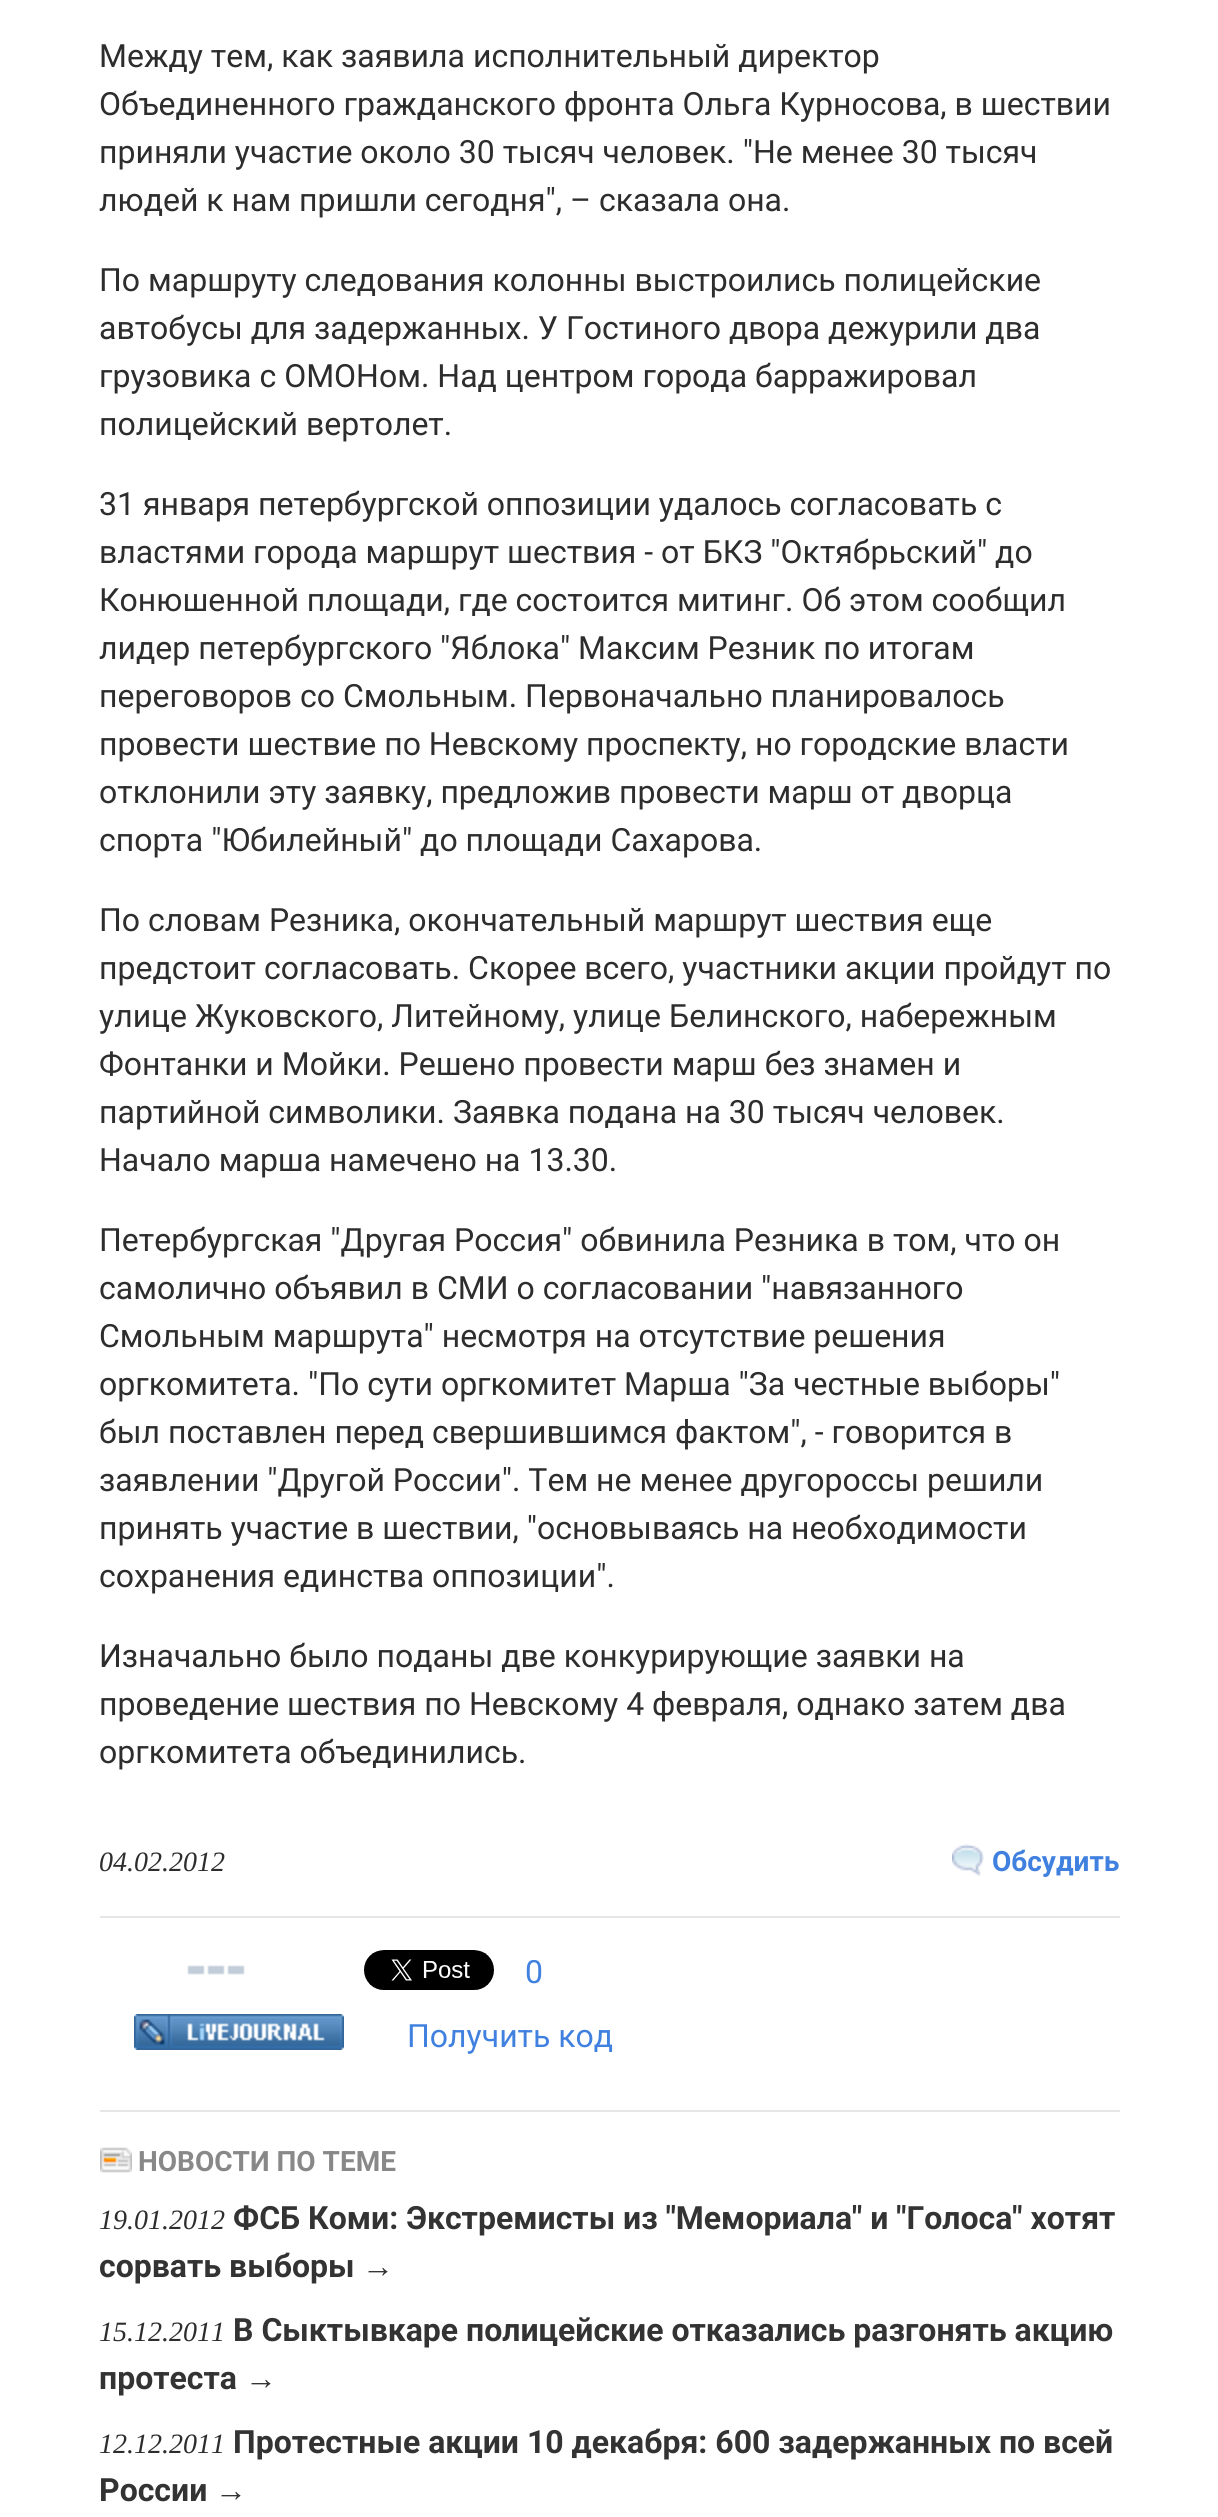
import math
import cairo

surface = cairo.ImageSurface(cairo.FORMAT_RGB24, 1218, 2517)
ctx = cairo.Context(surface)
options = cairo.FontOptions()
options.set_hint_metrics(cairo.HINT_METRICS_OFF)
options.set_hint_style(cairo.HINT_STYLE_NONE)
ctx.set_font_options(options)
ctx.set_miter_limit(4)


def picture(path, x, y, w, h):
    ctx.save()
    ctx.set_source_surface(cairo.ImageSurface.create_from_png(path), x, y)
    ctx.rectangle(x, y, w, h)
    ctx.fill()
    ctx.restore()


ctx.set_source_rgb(1, 1, 1)
ctx.paint()
ctx.select_font_face("Roboto")
ctx.set_font_size(32)
ctx.set_source_rgb(0.176, 0.176, 0.176)
ctx.move_to(99, 67)
ctx.show_text("Между тем, как заявила исполнительный директор")
ctx.move_to(99, 115)
ctx.show_text("Объединенного гражданского фронта Ольга Курносова, в шествии")
ctx.move_to(99, 163)
ctx.show_text("приняли участие около 30 тысяч человек. \"Не менее 30 тысяч")
ctx.move_to(99, 211)
ctx.show_text("людей к нам пришли сегодня\", – сказала она.")
ctx.move_to(99, 291)
ctx.show_text("По маршруту следования колонны выстроились полицейские")
ctx.move_to(99, 339)
ctx.show_text("автобусы для задержанных. У Гостиного двора дежурили два")
ctx.move_to(99, 387)
ctx.show_text("грузовика с ОМОНом. Над центром города барражировал")
ctx.move_to(99, 435)
ctx.show_text("полицейский вертолет.")
ctx.move_to(99, 515)
ctx.show_text("31 января петербургской оппозиции удалось согласовать с")
ctx.move_to(99, 563)
ctx.show_text("властями города маршрут шествия - от БКЗ \"Октябрьский\" до")
ctx.move_to(99, 611)
ctx.show_text("Конюшенной площади, где состоится митинг. Об этом сообщил")
ctx.move_to(99, 659)
ctx.show_text("лидер петербургского \"Яблока\" Максим Резник по итогам")
ctx.move_to(99, 707)
ctx.show_text("переговоров со Смольным. Первоначально планировалось")
ctx.move_to(99, 755)
ctx.show_text("провести шествие по Невскому проспекту, но городские власти")
ctx.move_to(99, 803)
ctx.show_text("отклонили эту заявку, предложив провести марш от дворца")
ctx.move_to(99, 851)
ctx.show_text("спорта \"Юбилейный\" до площади Сахарова.")
ctx.move_to(99, 931)
ctx.show_text("По словам Резника, окончательный маршрут шествия еще")
ctx.move_to(99, 979)
ctx.show_text("предстоит согласовать. Скорее всего, участники акции пройдут по")
ctx.move_to(99, 1027)
ctx.show_text("улице Жуковского, Литейному, улице Белинского, набережным")
ctx.move_to(99, 1075)
ctx.show_text("Фонтанки и Мойки. Решено провести марш без знамен и")
ctx.move_to(99, 1123)
ctx.show_text("партийной символики. Заявка подана на 30 тысяч человек.")
ctx.move_to(99, 1171)
ctx.show_text("Начало марша намечено на 13.30.")
ctx.move_to(99, 1251)
ctx.show_text("Петербургская \"Другая Россия\" обвинила Резника в том, что он")
ctx.move_to(99, 1299)
ctx.show_text("самолично объявил в СМИ о согласовании \"навязанного")
ctx.move_to(99, 1347)
ctx.show_text("Смольным маршрута\" несмотря на отсутствие решения")
ctx.move_to(99, 1395)
ctx.show_text("оргкомитета. \"По сути оргкомитет Марша \"За честные выборы\"")
ctx.move_to(99, 1443)
ctx.show_text("был поставлен перед свершившимся фактом\", - говорится в")
ctx.move_to(99, 1491)
ctx.show_text("заявлении \"Другой России\". Тем не менее другороссы решили")
ctx.move_to(99, 1539)
ctx.show_text("принять участие в шествии, \"основываясь на необходимости")
ctx.move_to(99, 1587)
ctx.show_text("сохранения единства оппозиции\".")
ctx.move_to(99, 1667)
ctx.show_text("Изначально было поданы две конкурирующие заявки на")
ctx.move_to(99, 1715)
ctx.show_text("проведение шествия по Невскому 4 февраля, однако затем два")
ctx.move_to(99, 1763)
ctx.show_text("оргкомитета объединились.")
ctx.select_font_face("Liberation Serif", cairo.FONT_SLANT_ITALIC)
ctx.set_font_size(28)
ctx.move_to(99, 1871)
ctx.show_text("04.02.2012")
picture("img1.png", 952, 1844, 32, 32)
ctx.select_font_face("Roboto", cairo.FONT_SLANT_NORMAL, cairo.FONT_WEIGHT_BOLD)
ctx.set_source_rgb(0.251, 0.502, 0.875)
ctx.move_to(992, 1871)
ctx.show_text("Обсудить")
ctx.set_source_rgb(0.902, 0.902, 0.902)
ctx.rectangle(100, 1916, 1020, 2)
ctx.fill()
picture("img2.png", 187, 1965, 58, 10)
picture("img3.png", 364, 1950, 130, 40)
ctx.select_font_face("Roboto")
ctx.set_font_size(32)
ctx.set_source_rgb(0.251, 0.502, 0.875)
ctx.move_to(525, 1983)
ctx.show_text("0")
picture("img4.png", 134, 2014, 210, 36)
ctx.move_to(407, 2047)
ctx.show_text("Получить код")
ctx.set_source_rgb(0.902, 0.902, 0.902)
ctx.rectangle(100, 2110, 1020, 2)
ctx.fill()
picture("img5.png", 100, 2147, 32, 26)
ctx.select_font_face("Roboto", cairo.FONT_SLANT_NORMAL, cairo.FONT_WEIGHT_BOLD)
ctx.set_font_size(28)
ctx.set_source_rgb(0.533, 0.533, 0.533)
ctx.move_to(138, 2171)
ctx.show_text("НОВОСТИ ПО ТЕМЕ")
ctx.select_font_face("Liberation Serif", cairo.FONT_SLANT_ITALIC)
ctx.set_source_rgb(0.176, 0.176, 0.176)
ctx.move_to(99, 2229)
ctx.show_text("19.01.2012")
ctx.select_font_face("Roboto", cairo.FONT_SLANT_NORMAL, cairo.FONT_WEIGHT_BOLD)
ctx.set_font_size(32)
ctx.set_source_rgb(0.2, 0.2, 0.2)
ctx.move_to(233, 2229)
ctx.show_text("ФСБ Коми: Экстремисты из \"Мемориала\" и \"Голоса\" хотят")
ctx.move_to(99, 2277)
ctx.show_text("сорвать выборы")
ctx.select_font_face("Liberation Sans", cairo.FONT_SLANT_NORMAL, cairo.FONT_WEIGHT_BOLD)
ctx.move_to(362, 2277)
ctx.show_text("→")
ctx.select_font_face("Liberation Serif", cairo.FONT_SLANT_ITALIC)
ctx.set_font_size(28)
ctx.set_source_rgb(0.176, 0.176, 0.176)
ctx.move_to(99, 2341)
ctx.show_text("15.12.2011")
ctx.select_font_face("Roboto", cairo.FONT_SLANT_NORMAL, cairo.FONT_WEIGHT_BOLD)
ctx.set_font_size(32)
ctx.set_source_rgb(0.2, 0.2, 0.2)
ctx.move_to(233, 2341)
ctx.show_text("В Сыктывкаре полицейские отказались разгонять акцию")
ctx.move_to(99, 2389)
ctx.show_text("протеста")
ctx.select_font_face("Liberation Sans", cairo.FONT_SLANT_NORMAL, cairo.FONT_WEIGHT_BOLD)
ctx.move_to(245, 2389)
ctx.show_text("→")
ctx.select_font_face("Liberation Serif", cairo.FONT_SLANT_ITALIC)
ctx.set_font_size(28)
ctx.set_source_rgb(0.176, 0.176, 0.176)
ctx.move_to(99, 2453)
ctx.show_text("12.12.2011")
ctx.select_font_face("Roboto", cairo.FONT_SLANT_NORMAL, cairo.FONT_WEIGHT_BOLD)
ctx.set_font_size(32)
ctx.set_source_rgb(0.2, 0.2, 0.2)
ctx.move_to(233, 2453)
ctx.show_text("Протестные акции 10 декабря: 600 задержанных по всей")
ctx.move_to(99, 2501)
ctx.show_text("России")
ctx.select_font_face("Liberation Sans", cairo.FONT_SLANT_NORMAL, cairo.FONT_WEIGHT_BOLD)
ctx.move_to(215, 2501)
ctx.show_text("→")
surface.write_to_png("page.png")
